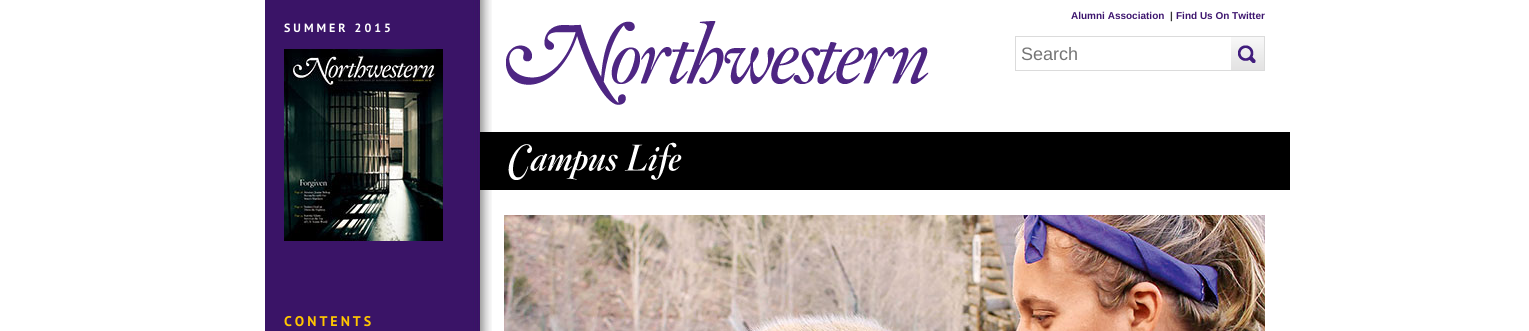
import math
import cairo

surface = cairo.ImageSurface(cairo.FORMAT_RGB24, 1529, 331)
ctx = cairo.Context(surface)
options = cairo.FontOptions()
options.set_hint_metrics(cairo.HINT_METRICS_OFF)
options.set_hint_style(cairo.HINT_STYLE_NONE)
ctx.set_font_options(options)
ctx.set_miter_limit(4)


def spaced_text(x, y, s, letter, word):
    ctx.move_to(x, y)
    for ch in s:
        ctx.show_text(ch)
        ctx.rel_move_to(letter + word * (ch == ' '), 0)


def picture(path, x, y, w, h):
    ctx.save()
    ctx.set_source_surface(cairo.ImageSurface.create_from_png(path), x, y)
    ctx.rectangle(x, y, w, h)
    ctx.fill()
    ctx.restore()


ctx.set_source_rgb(1, 1, 1)
ctx.paint()
picture("img1.png", 265, 0, 227, 331)
ctx.select_font_face("PT Sans", cairo.FONT_SLANT_NORMAL, cairo.FONT_WEIGHT_BOLD)
ctx.set_font_size(12)
ctx.set_source_rgb(1, 1, 1)
spaced_text(284, 32, "SUMMER 2015", 3, 0)
picture("img2.png", 284, 49, 159, 192)
ctx.set_font_size(14)
ctx.set_source_rgb(1, 0.776, 0)
spaced_text(284, 326, "CONTENTS", 3, 0)
ctx.select_font_face("Liberation Sans", cairo.FONT_SLANT_NORMAL, cairo.FONT_WEIGHT_BOLD)
ctx.set_font_size(10)
ctx.set_source_rgb(0.243, 0.086, 0.435)
ctx.move_to(1071, 19)
ctx.show_text("Alumni Association")
ctx.set_source_rgb(0.2, 0.2, 0.2)
ctx.move_to(1170, 19)
ctx.show_text("|")
ctx.set_source_rgb(0.243, 0.086, 0.435)
ctx.move_to(1176, 19)
ctx.show_text("Find Us On Twitter")
picture("img3.png", 506, 21, 423, 84)
ctx.rectangle(1015.5, 36.5, 249, 34)
ctx.set_source_rgb(0.859, 0.859, 0.859)
ctx.set_line_width(1)
ctx.stroke()
ctx.select_font_face("Liberation Sans")
ctx.set_font_size(18)
ctx.set_source_rgb(0.459, 0.459, 0.459)
ctx.move_to(1021, 60)
ctx.show_text("Search")
picture("img4.png", 1231, 37, 33, 33)
ctx.set_source_rgb(0, 0, 0)
ctx.rectangle(480, 132, 810, 58)
ctx.fill()
picture("img5.png", 508, 142, 174, 38)
picture("img6.png", 504, 215, 761, 116)
surface.write_to_png("page.png")
